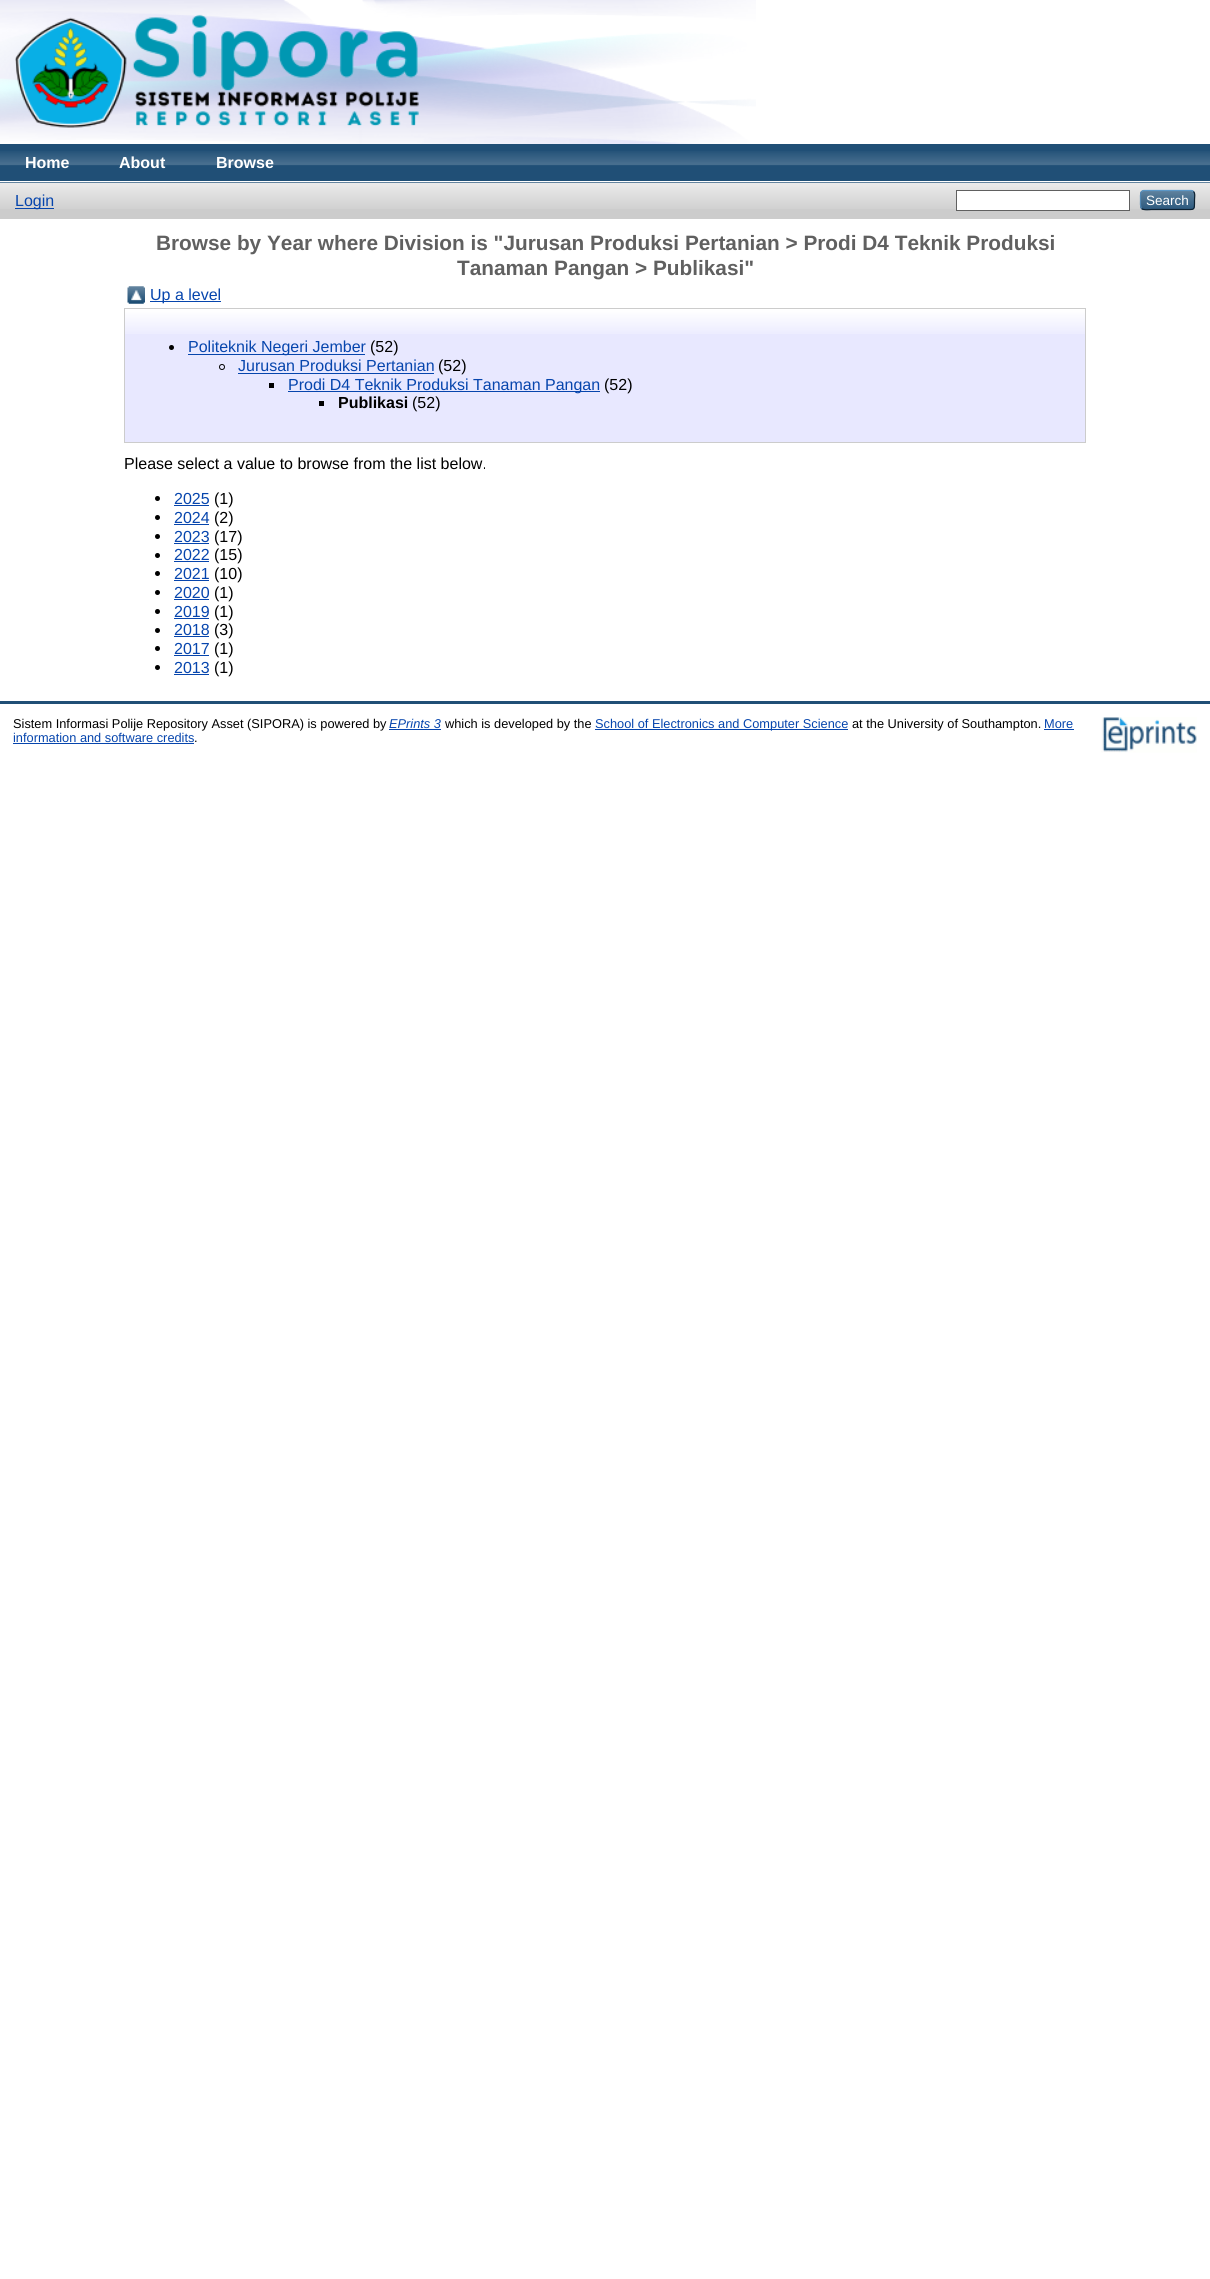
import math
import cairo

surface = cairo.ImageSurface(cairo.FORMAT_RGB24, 1210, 2279)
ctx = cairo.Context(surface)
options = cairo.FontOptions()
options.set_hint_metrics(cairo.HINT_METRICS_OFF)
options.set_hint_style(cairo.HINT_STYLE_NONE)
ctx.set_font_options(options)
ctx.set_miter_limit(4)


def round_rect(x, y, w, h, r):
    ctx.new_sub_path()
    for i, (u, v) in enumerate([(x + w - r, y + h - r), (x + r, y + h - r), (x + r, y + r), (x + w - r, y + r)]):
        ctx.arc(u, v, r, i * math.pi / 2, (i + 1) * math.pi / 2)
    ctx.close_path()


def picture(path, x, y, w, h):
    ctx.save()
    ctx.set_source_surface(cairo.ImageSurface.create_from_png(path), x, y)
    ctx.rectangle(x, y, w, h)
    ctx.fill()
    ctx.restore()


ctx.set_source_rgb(1, 1, 1)
ctx.paint()
picture("img1.png", 0, 0, 756, 144)
picture("img2.png", 15, 14, 404, 114)
ctx.set_source_rgb(0.125, 0.31, 0.463)
ctx.rectangle(0, 144, 1210, 39)
ctx.fill()
picture("img3.png", 0, 151, 1210, 15)
ctx.set_source_rgb(1, 1, 1)
ctx.rectangle(0, 181, 1210, 1)
ctx.fill()
ctx.select_font_face("Liberation Sans", cairo.FONT_SLANT_NORMAL, cairo.FONT_WEIGHT_BOLD)
ctx.set_font_size(16)
ctx.move_to(25, 168)
ctx.show_text("Home")
ctx.move_to(119, 168)
ctx.show_text("About")
ctx.move_to(216, 168)
ctx.show_text("Browse")
ctx.set_source_rgb(0.8, 0.8, 0.8)
ctx.rectangle(0, 183, 1210, 36)
ctx.fill()
picture("img4.png", 0, 182, 1210, 27)
ctx.set_source_rgb(0.024, 0.271, 0.678)
ctx.rectangle(15, 208, 39, 1)
ctx.fill()
ctx.select_font_face("Liberation Sans")
ctx.move_to(15, 206)
ctx.show_text("Login")
ctx.set_source_rgb(1, 1, 1)
ctx.rectangle(956.5, 190.5, 173, 20)
ctx.fill_preserve()
ctx.set_source_rgb(0.376, 0.376, 0.376)
ctx.set_line_width(1)
ctx.stroke()
ctx.set_source_rgb(0.122, 0.31, 0.463)
round_rect(1140, 190, 55, 20, 4)
ctx.fill()
picture("img5.png", 1140, 190, 55, 20)
ctx.new_path()
ctx.move_to(1141.5, 191.5)
ctx.line_to(1143.5, 190.5)
ctx.line_to(1191.5, 190.5)
ctx.line_to(1193.5, 191.5)
ctx.set_source_rgb(0.357, 0.592, 0.78)
ctx.set_line_width(1.2)
ctx.stroke()
ctx.new_path()
ctx.move_to(1193.5, 191.5)
ctx.curve_to(1195.5, 193.5, 1194.5, 197.5, 1194.5, 200)
ctx.curve_to(1194.5, 211, 1195, 209.5, 1183.5, 209.5)
ctx.line_to(1151.5, 209.5)
ctx.curve_to(1151, 209.5, 1143.5, 210.5, 1141.5, 208.5)
ctx.set_source_rgb(0.051, 0.129, 0.192)
ctx.stroke()
ctx.new_path()
ctx.move_to(1141.5, 208.5)
ctx.curve_to(1140, 206.5, 1140.5, 202, 1140.5, 200)
ctx.curve_to(1140.5, 198, 1140, 193.5, 1141.5, 191.5)
ctx.set_source_rgb(0.322, 0.529, 0.702)
ctx.stroke()
ctx.set_font_size(13.5)
ctx.set_source_rgb(1, 1, 1)
ctx.move_to(1146, 205)
ctx.show_text("Search")
ctx.select_font_face("Liberation Sans", cairo.FONT_SLANT_NORMAL, cairo.FONT_WEIGHT_BOLD)
ctx.set_font_size(20.8)
ctx.set_source_rgb(0.376, 0.376, 0.376)
ctx.move_to(156, 250)
ctx.show_text("Browse by Year where Division is \"Jurusan Produksi Pertanian > Prodi D4 Teknik Produksi")
ctx.move_to(457, 275)
ctx.show_text("Tanaman Pangan > Publikasi\"")
picture("img6.png", 127, 286, 18, 18)
ctx.set_source_rgb(0.024, 0.271, 0.678)
ctx.rectangle(150, 301, 71, 1)
ctx.fill()
ctx.select_font_face("Liberation Sans")
ctx.set_font_size(16)
ctx.move_to(150, 300)
ctx.show_text("Up a level")
ctx.set_source_rgb(0.91, 0.91, 1)
ctx.rectangle(125, 310, 960, 132)
ctx.fill()
picture("img7.png", 125, 309, 960, 25)
ctx.rectangle(124.5, 308.5, 961, 134)
ctx.set_source_rgb(0.8, 0.8, 0.8)
ctx.set_line_width(1)
ctx.stroke()
ctx.set_source_rgb(0, 0, 0)
ctx.arc(171.5, 347.5, 2.5, 0, 2 * math.pi)
ctx.fill()
ctx.set_source_rgb(0.024, 0.271, 0.678)
ctx.rectangle(188, 354, 177, 1)
ctx.fill()
ctx.move_to(188, 352)
ctx.show_text("Politeknik Negeri Jember")
ctx.set_source_rgb(0, 0, 0)
ctx.move_to(370, 352)
ctx.show_text("(52)")
ctx.new_path()
ctx.arc(222, 367, 2.5, 0, 2 * math.pi)
ctx.stroke()
ctx.set_source_rgb(0.024, 0.271, 0.678)
ctx.move_to(238, 371)
ctx.show_text("Jurusan Produksi Pertanian")
ctx.rectangle(238, 373, 196, 1)
ctx.fill()
ctx.set_source_rgb(0, 0, 0)
ctx.move_to(438, 371)
ctx.show_text("(52)")
ctx.rectangle(269, 383, 5, 5)
ctx.fill()
ctx.set_source_rgb(0.024, 0.271, 0.678)
ctx.rectangle(288, 391, 312, 1)
ctx.fill()
ctx.move_to(288, 390)
ctx.show_text("Prodi D4 Teknik Produksi Tanaman Pangan")
ctx.set_source_rgb(0, 0, 0)
ctx.move_to(604, 390)
ctx.show_text("(52)")
ctx.rectangle(319, 401, 5, 5)
ctx.fill()
ctx.select_font_face("Liberation Sans", cairo.FONT_SLANT_NORMAL, cairo.FONT_WEIGHT_BOLD)
ctx.move_to(338, 408)
ctx.show_text("Publikasi")
ctx.select_font_face("Liberation Sans")
ctx.move_to(412, 408)
ctx.show_text("(52)")
ctx.move_to(124, 469)
ctx.show_text("Please select a value to browse from the list below.")
ctx.new_path()
ctx.arc(157.5, 498.5, 2.5, 0, 2 * math.pi)
ctx.fill()
ctx.set_source_rgb(0.024, 0.271, 0.678)
ctx.move_to(174, 504)
ctx.show_text("2025")
ctx.rectangle(174, 505, 35, 1)
ctx.fill()
ctx.set_source_rgb(0, 0, 0)
ctx.move_to(214, 504)
ctx.show_text("(1)")
ctx.new_path()
ctx.arc(157.5, 517.5, 2.5, 0, 2 * math.pi)
ctx.fill()
ctx.set_source_rgb(0.024, 0.271, 0.678)
ctx.move_to(174, 523)
ctx.show_text("2024")
ctx.rectangle(174, 524, 35, 1)
ctx.fill()
ctx.set_source_rgb(0, 0, 0)
ctx.move_to(214, 523)
ctx.show_text("(2)")
ctx.new_path()
ctx.arc(157.5, 536.5, 2.5, 0, 2 * math.pi)
ctx.fill()
ctx.set_source_rgb(0.024, 0.271, 0.678)
ctx.move_to(174, 542)
ctx.show_text("2023")
ctx.rectangle(174, 543, 35, 1)
ctx.fill()
ctx.set_source_rgb(0, 0, 0)
ctx.move_to(214, 542)
ctx.show_text("(17)")
ctx.new_path()
ctx.arc(157.5, 555.5, 2.5, 0, 2 * math.pi)
ctx.fill()
ctx.set_source_rgb(0.024, 0.271, 0.678)
ctx.move_to(174, 560)
ctx.show_text("2022")
ctx.rectangle(174, 561, 35, 1)
ctx.fill()
ctx.set_source_rgb(0, 0, 0)
ctx.move_to(214, 560)
ctx.show_text("(15)")
ctx.new_path()
ctx.arc(157.5, 573.5, 2.5, 0, 2 * math.pi)
ctx.fill()
ctx.set_source_rgb(0.024, 0.271, 0.678)
ctx.move_to(174, 579)
ctx.show_text("2021")
ctx.rectangle(174, 580, 35, 1)
ctx.fill()
ctx.set_source_rgb(0, 0, 0)
ctx.move_to(214, 579)
ctx.show_text("(10)")
ctx.new_path()
ctx.arc(157.5, 592.5, 2.5, 0, 2 * math.pi)
ctx.fill()
ctx.set_source_rgb(0.024, 0.271, 0.678)
ctx.move_to(174, 598)
ctx.show_text("2020")
ctx.rectangle(174, 599, 35, 1)
ctx.fill()
ctx.set_source_rgb(0, 0, 0)
ctx.move_to(214, 598)
ctx.show_text("(1)")
ctx.new_path()
ctx.arc(157.5, 611.5, 2.5, 0, 2 * math.pi)
ctx.fill()
ctx.set_source_rgb(0.024, 0.271, 0.678)
ctx.move_to(174, 617)
ctx.show_text("2019")
ctx.rectangle(174, 618, 35, 1)
ctx.fill()
ctx.set_source_rgb(0, 0, 0)
ctx.move_to(214, 617)
ctx.show_text("(1)")
ctx.new_path()
ctx.arc(157.5, 630.5, 2.5, 0, 2 * math.pi)
ctx.fill()
ctx.set_source_rgb(0.024, 0.271, 0.678)
ctx.move_to(174, 635)
ctx.show_text("2018")
ctx.rectangle(174, 636, 35, 1)
ctx.fill()
ctx.set_source_rgb(0, 0, 0)
ctx.move_to(214, 635)
ctx.show_text("(3)")
ctx.new_path()
ctx.arc(157.5, 648.5, 2.5, 0, 2 * math.pi)
ctx.fill()
ctx.set_source_rgb(0.024, 0.271, 0.678)
ctx.move_to(174, 654)
ctx.show_text("2017")
ctx.rectangle(174, 655, 35, 1)
ctx.fill()
ctx.set_source_rgb(0, 0, 0)
ctx.move_to(214, 654)
ctx.show_text("(1)")
ctx.new_path()
ctx.arc(157.5, 667.5, 2.5, 0, 2 * math.pi)
ctx.fill()
ctx.set_source_rgb(0.024, 0.271, 0.678)
ctx.move_to(174, 673)
ctx.show_text("2013")
ctx.rectangle(174, 674, 35, 1)
ctx.fill()
ctx.set_source_rgb(0, 0, 0)
ctx.move_to(214, 673)
ctx.show_text("(1)")
ctx.set_source_rgb(0.125, 0.31, 0.463)
ctx.rectangle(0, 701, 1210, 3)
ctx.fill()
ctx.set_font_size(12.8)
ctx.set_source_rgb(0, 0, 0)
ctx.move_to(13, 728)
ctx.show_text("Sistem Informasi Polije Repository Asset (SIPORA) is powered by")
ctx.select_font_face("Liberation Sans", cairo.FONT_SLANT_ITALIC)
ctx.set_source_rgb(0.024, 0.271, 0.678)
ctx.move_to(389, 728)
ctx.show_text("EPrints 3")
ctx.rectangle(389, 729, 52, 1)
ctx.fill()
ctx.select_font_face("Liberation Sans")
ctx.set_source_rgb(0, 0, 0)
ctx.move_to(445, 728)
ctx.show_text("which is developed by the")
ctx.set_source_rgb(0.024, 0.271, 0.678)
ctx.rectangle(595, 729, 253, 1)
ctx.fill()
ctx.move_to(595, 728)
ctx.show_text("School of Electronics and Computer Science")
ctx.set_source_rgb(0, 0, 0)
ctx.move_to(852, 728)
ctx.show_text("at the University of Southampton.")
ctx.set_source_rgb(0.024, 0.271, 0.678)
ctx.move_to(1044, 728)
ctx.show_text("More")
ctx.rectangle(1044, 729, 30, 1)
ctx.fill()
ctx.move_to(13, 742)
ctx.show_text("information and software credits")
ctx.rectangle(13, 743, 181, 1)
ctx.fill()
ctx.set_source_rgb(0, 0, 0)
ctx.move_to(194, 742)
ctx.show_text(".")
picture("img8.png", 1101, 717, 96, 36)
surface.write_to_png("page.png")
